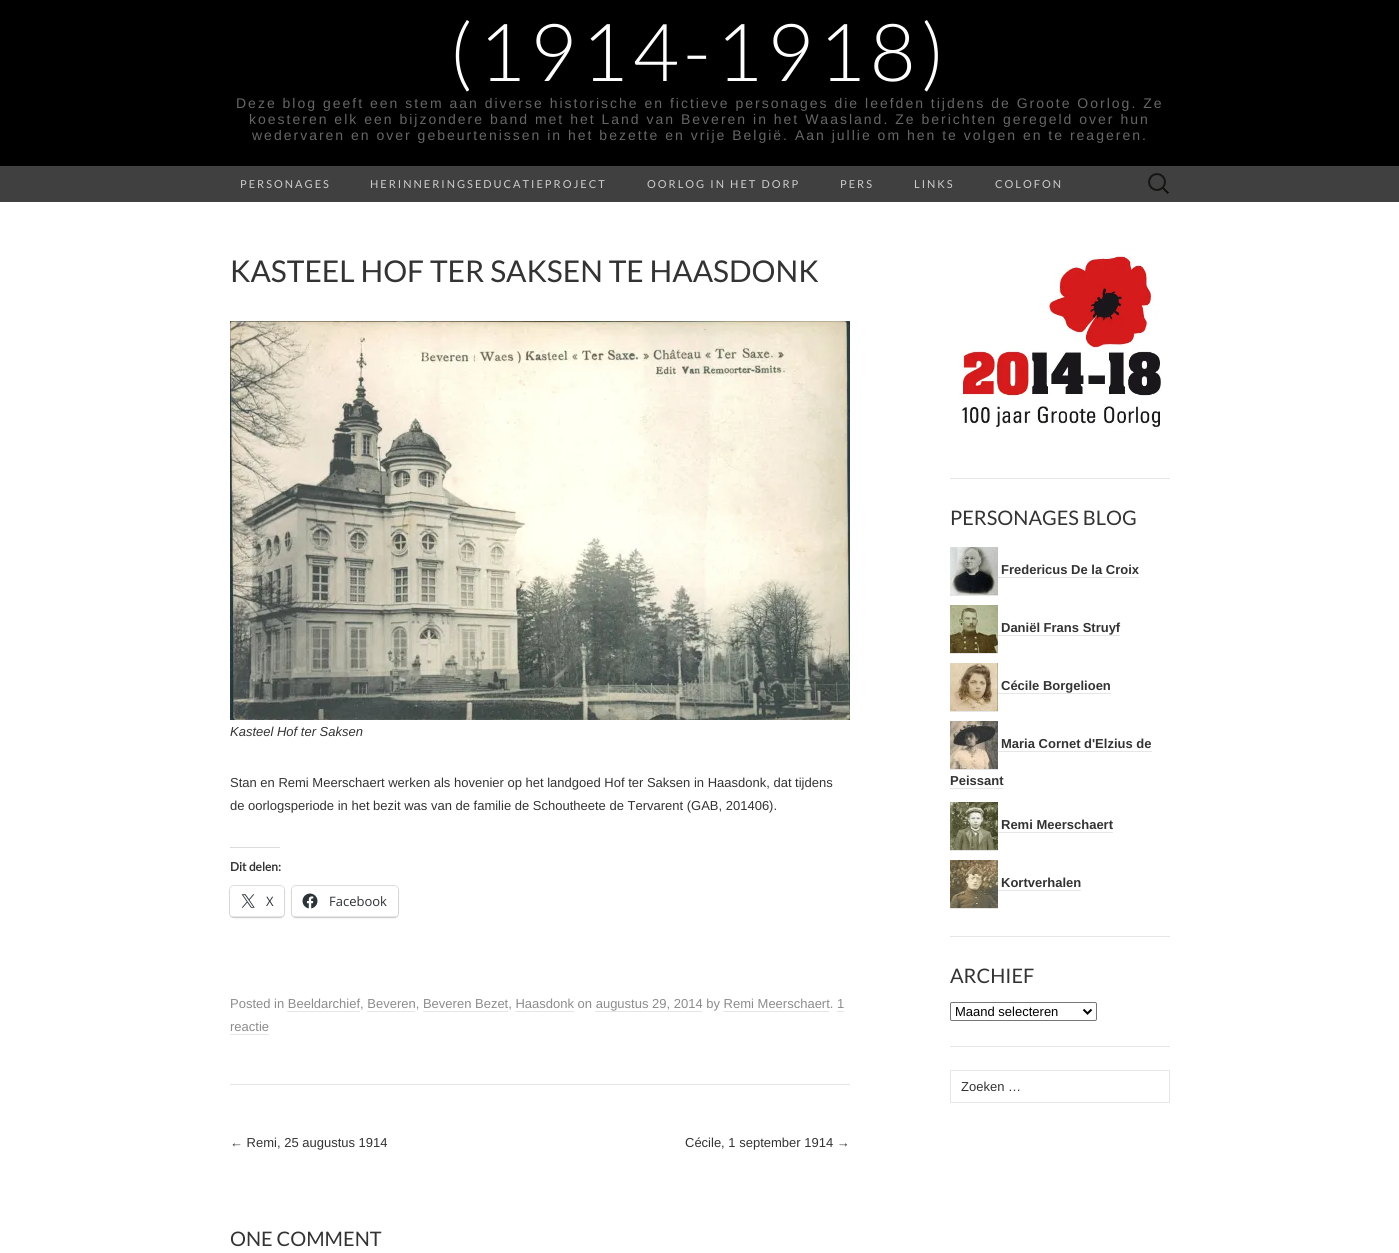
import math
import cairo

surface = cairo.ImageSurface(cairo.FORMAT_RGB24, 1399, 1253)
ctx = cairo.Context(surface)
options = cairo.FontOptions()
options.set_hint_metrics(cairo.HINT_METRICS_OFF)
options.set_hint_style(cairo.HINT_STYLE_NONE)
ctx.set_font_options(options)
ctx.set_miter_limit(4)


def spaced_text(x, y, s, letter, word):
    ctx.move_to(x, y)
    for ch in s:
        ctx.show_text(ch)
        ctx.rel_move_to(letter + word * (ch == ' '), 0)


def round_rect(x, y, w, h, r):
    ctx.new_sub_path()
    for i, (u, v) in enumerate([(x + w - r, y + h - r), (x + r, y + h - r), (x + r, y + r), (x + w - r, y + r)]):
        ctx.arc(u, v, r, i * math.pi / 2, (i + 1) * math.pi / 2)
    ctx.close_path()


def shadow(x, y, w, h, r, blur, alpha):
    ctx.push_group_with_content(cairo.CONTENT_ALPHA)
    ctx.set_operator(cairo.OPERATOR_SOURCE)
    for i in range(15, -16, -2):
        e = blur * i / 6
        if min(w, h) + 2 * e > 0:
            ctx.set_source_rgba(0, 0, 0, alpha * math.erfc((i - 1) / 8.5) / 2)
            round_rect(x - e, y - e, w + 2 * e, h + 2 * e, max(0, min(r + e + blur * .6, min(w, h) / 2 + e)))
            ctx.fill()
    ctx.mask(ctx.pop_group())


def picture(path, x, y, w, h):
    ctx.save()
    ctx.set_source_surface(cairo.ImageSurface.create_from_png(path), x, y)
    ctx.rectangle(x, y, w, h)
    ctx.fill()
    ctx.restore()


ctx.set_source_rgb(1, 1, 1)
ctx.paint()
ctx.set_source_rgb(0, 0, 0)
ctx.rectangle(0, 0, 1399, 166)
ctx.fill()
ctx.select_font_face("Lato Light")
ctx.set_font_size(80)
ctx.set_source_rgb(1, 1, 1)
spaced_text(449, 81, "(1914-1918)", 5, 0)
ctx.select_font_face("Liberation Sans")
ctx.set_font_size(14)
ctx.set_source_rgb(0.4, 0.4, 0.4)
spaced_text(236, 108, "Deze blog geeft een stem aan diverse historische en fictieve personages die leefden tijdens de Groote Oorlog. Ze", 2, 0)
spaced_text(249, 124, "koesteren elk een bijzondere band met het Land van Beveren in het Waasland. Ze berichten geregeld over hun", 2, 0)
spaced_text(252, 140, "wedervaren en over gebeurtenissen in het bezette en vrije België. Aan jullie om hen te volgen en te reageren.", 2, 0)
ctx.set_source_rgb(0.251, 0.251, 0.251)
ctx.rectangle(0, 166, 1399, 36)
ctx.fill()
ctx.select_font_face("Lato")
ctx.set_font_size(11)
ctx.set_source_rgb(0.8, 0.8, 0.8)
spaced_text(240, 188, "PERSONAGES", 2, 0)
spaced_text(370, 188, "HERINNERINGSEDUCATIEPROJECT", 2, 0)
spaced_text(647, 188, "OORLOG IN HET DORP", 2, 0)
spaced_text(840, 188, "PERS", 2, 0)
spaced_text(914, 188, "LINKS", 2, 0)
spaced_text(995, 188, "COLOFON", 2, 0)
picture("img1.png", 1148, 173, 21, 21)
ctx.set_source_rgb(0.902, 0.902, 0.902)
ctx.rectangle(230, 1084, 620, 1)
ctx.fill()
ctx.set_font_size(30)
ctx.set_source_rgb(0.2, 0.2, 0.2)
ctx.move_to(230, 282)
ctx.show_text("KASTEEL HOF TER SAKSEN TE HAASDONK")
picture("img2.png", 230, 321, 620, 399)
ctx.select_font_face("Liberation Sans", cairo.FONT_SLANT_ITALIC)
ctx.set_font_size(13)
ctx.move_to(230, 736)
ctx.show_text("Kasteel Hof ter Saksen")
ctx.select_font_face("Liberation Sans")
ctx.move_to(230, 787)
ctx.show_text("Stan en Remi Meerschaert werken als hovenier op het landgoed Hof ter Saksen in Haasdonk, dat tijdens")
ctx.move_to(230, 810)
ctx.show_text("de oorlogsperiode in het bezit was van de familie de Schoutheete de Tervarent (GAB, 201406).")
ctx.set_source_rgb(0.863, 0.863, 0.871)
ctx.rectangle(230, 847, 50, 1)
ctx.fill()
ctx.select_font_face("Lato", cairo.FONT_SLANT_NORMAL, cairo.FONT_WEIGHT_BOLD)
ctx.set_font_size(12)
ctx.set_source_rgb(0.2, 0.2, 0.2)
ctx.move_to(230, 871)
ctx.show_text("Dit delen:")
round_rect(229.5, 885.5, 55, 32, 4.5)
ctx.set_source_rgb(0.878, 0.878, 0.878)
ctx.set_line_width(1)
ctx.stroke()
ctx.set_source_rgb(0, 0, 0)
shadow(230, 887, 54, 31, 4, 1, 0.12)
ctx.set_source_rgb(1, 1, 1)
round_rect(230, 886, 54, 31, 4)
ctx.fill()
ctx.set_source_rgba(0, 0, 0, 0.1)
ctx.rectangle(232, 916, 50, 1)
ctx.fill()
picture("img3.png", 241, 894, 14, 14)
ctx.select_font_face("Open Sans")
ctx.set_font_size(13)
ctx.set_source_rgb(0.173, 0.2, 0.22)
ctx.move_to(266, 906)
ctx.show_text("X")
round_rect(291.5, 885.5, 107, 32, 4.5)
ctx.set_source_rgb(0.878, 0.878, 0.878)
ctx.stroke()
ctx.set_source_rgb(0, 0, 0)
shadow(292, 887, 106, 31, 4, 1, 0.12)
ctx.set_source_rgb(1, 1, 1)
round_rect(292, 886, 106, 31, 4)
ctx.fill()
ctx.set_source_rgba(0, 0, 0, 0.1)
ctx.rectangle(294, 916, 102, 1)
ctx.fill()
picture("img4.png", 302, 893, 16, 16)
ctx.set_source_rgb(0.173, 0.2, 0.22)
ctx.move_to(329, 906)
ctx.show_text("Facebook")
ctx.select_font_face("Liberation Sans")
ctx.set_source_rgb(0.549, 0.549, 0.549)
ctx.move_to(230, 1008)
ctx.show_text("Posted in Beeldarchief, Beveren, Beveren Bezet, Haasdonk on augustus 29, 2014 by Remi Meerschaert. 1")
ctx.set_source_rgb(0.902, 0.902, 0.902)
ctx.rectangle(287, 1011, 73, 1)
ctx.fill()
ctx.rectangle(367, 1011, 48, 1)
ctx.fill()
ctx.rectangle(423, 1011, 85, 1)
ctx.fill()
ctx.rectangle(515, 1011, 59, 1)
ctx.fill()
ctx.rectangle(595, 1011, 107, 1)
ctx.fill()
ctx.rectangle(723, 1011, 106, 1)
ctx.fill()
ctx.set_source_rgb(0.549, 0.549, 0.549)
ctx.move_to(230, 1031)
ctx.show_text("reactie")
ctx.set_source_rgb(0.902, 0.902, 0.902)
ctx.rectangle(837, 1011, 7, 1)
ctx.fill()
ctx.rectangle(230, 1034, 39, 1)
ctx.fill()
ctx.set_source_rgb(0.2, 0.2, 0.2)
ctx.move_to(230, 1147)
ctx.show_text("← Remi, 25 augustus 1914")
ctx.move_to(685, 1147)
ctx.show_text("Cécile, 1 september 1914 →")
ctx.select_font_face("Lato")
ctx.set_font_size(20)
ctx.move_to(230, 1246)
ctx.show_text("ONE COMMENT")
ctx.set_source_rgb(0.902, 0.902, 0.902)
ctx.rectangle(950, 478, 220, 1)
ctx.fill()
picture("img5.png", 960, 254, 202, 175)
ctx.rectangle(950, 936, 220, 1)
ctx.fill()
ctx.set_source_rgb(0.2, 0.2, 0.2)
ctx.move_to(950, 525)
ctx.show_text("PERSONAGES BLOG")
picture("img6.png", 950, 547, 48, 48)
ctx.select_font_face("Liberation Sans", cairo.FONT_SLANT_NORMAL, cairo.FONT_WEIGHT_BOLD)
ctx.set_font_size(13)
ctx.move_to(1001, 574)
ctx.show_text("Fredericus De la Croix")
ctx.set_source_rgb(0.902, 0.902, 0.902)
ctx.rectangle(950, 595, 48, 1)
ctx.fill()
ctx.rectangle(998, 577, 141, 1)
ctx.fill()
picture("img7.png", 950, 605, 48, 48)
ctx.set_source_rgb(0.2, 0.2, 0.2)
ctx.move_to(1001, 632)
ctx.show_text("Daniël Frans Struyf")
ctx.set_source_rgb(0.902, 0.902, 0.902)
ctx.rectangle(950, 653, 48, 1)
ctx.fill()
ctx.rectangle(998, 635, 122, 1)
ctx.fill()
picture("img8.png", 950, 663, 48, 48)
ctx.set_source_rgb(0.2, 0.2, 0.2)
ctx.move_to(1001, 690)
ctx.show_text("Cécile Borgelioen")
ctx.set_source_rgb(0.902, 0.902, 0.902)
ctx.rectangle(950, 711, 48, 1)
ctx.fill()
ctx.rectangle(998, 693, 113, 1)
ctx.fill()
picture("img9.png", 950, 721, 48, 48)
ctx.set_source_rgb(0.2, 0.2, 0.2)
ctx.move_to(1001, 748)
ctx.show_text("Maria Cornet d'Elzius de")
ctx.set_source_rgb(0.902, 0.902, 0.902)
ctx.rectangle(998, 751, 154, 1)
ctx.fill()
ctx.set_source_rgb(0.2, 0.2, 0.2)
ctx.move_to(950, 785)
ctx.show_text("Peissant")
ctx.set_source_rgb(0.902, 0.902, 0.902)
ctx.rectangle(950, 769, 48, 1)
ctx.fill()
ctx.rectangle(950, 788, 53, 1)
ctx.fill()
picture("img10.png", 950, 802, 48, 48)
ctx.set_source_rgb(0.2, 0.2, 0.2)
ctx.move_to(1001, 829)
ctx.show_text("Remi Meerschaert")
ctx.set_source_rgb(0.902, 0.902, 0.902)
ctx.rectangle(950, 850, 48, 1)
ctx.fill()
ctx.rectangle(998, 832, 115, 1)
ctx.fill()
picture("img11.png", 950, 860, 48, 48)
ctx.set_source_rgb(0.2, 0.2, 0.2)
ctx.move_to(1001, 887)
ctx.show_text("Kortverhalen")
ctx.set_source_rgb(0.902, 0.902, 0.902)
ctx.rectangle(950, 908, 48, 1)
ctx.fill()
ctx.rectangle(998, 890, 83, 1)
ctx.fill()
ctx.rectangle(950, 1046, 220, 1)
ctx.fill()
ctx.select_font_face("Lato")
ctx.set_font_size(20)
ctx.set_source_rgb(0.2, 0.2, 0.2)
ctx.move_to(950, 983)
ctx.show_text("ARCHIEF")
round_rect(950.5, 1002.5, 146, 18, 1.5)
ctx.set_source_rgb(0.463, 0.463, 0.463)
ctx.stroke()
ctx.new_path()
ctx.move_to(1083.5, 1009.5)
ctx.line_to(1087.5, 1013.5)
ctx.line_to(1091.5, 1009.5)
ctx.set_source_rgb(0, 0, 0)
ctx.set_line_width(2)
ctx.stroke()
ctx.select_font_face("Liberation Sans")
ctx.set_font_size(13)
ctx.move_to(955, 1016)
ctx.show_text("Maand selecteren")
ctx.rectangle(950.5, 1070.5, 219, 32)
ctx.set_source_rgb(0.902, 0.902, 0.902)
ctx.set_line_width(1)
ctx.stroke()
ctx.set_source_rgb(0.2, 0.2, 0.2)
ctx.move_to(961, 1091)
ctx.show_text("Zoeken …")
surface.write_to_png("page.png")
